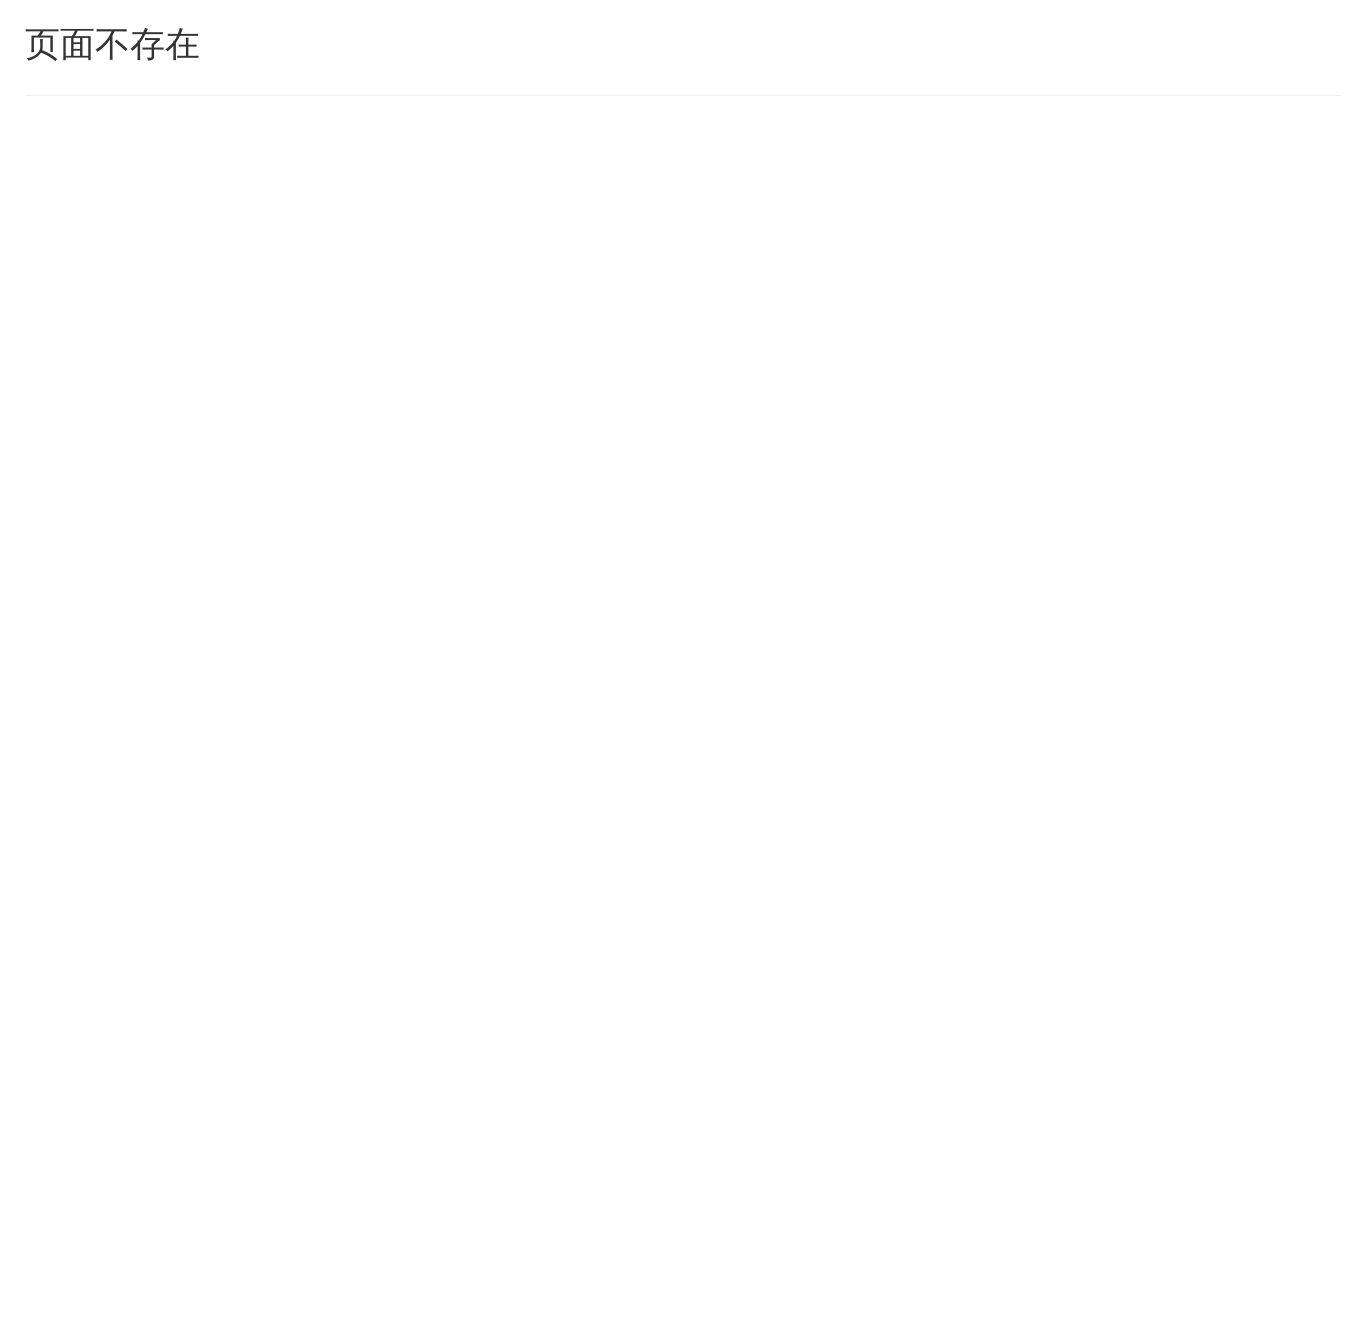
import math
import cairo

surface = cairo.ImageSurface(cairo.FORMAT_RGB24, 1366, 1327)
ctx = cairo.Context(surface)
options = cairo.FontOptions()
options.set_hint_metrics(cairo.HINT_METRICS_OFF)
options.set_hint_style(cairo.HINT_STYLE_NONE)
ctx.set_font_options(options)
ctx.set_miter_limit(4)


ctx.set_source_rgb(1, 1, 1)
ctx.paint()
ctx.select_font_face("WenQuanYi Zen Hei Medium")
ctx.set_font_size(35)
ctx.set_source_rgb(0.2, 0.2, 0.2)
ctx.move_to(25, 56)
ctx.show_text("页面不存在")
ctx.set_source_rgb(0.933, 0.933, 0.933)
ctx.rectangle(25, 95, 1316, 1)
ctx.fill()
surface.write_to_png("page.png")
